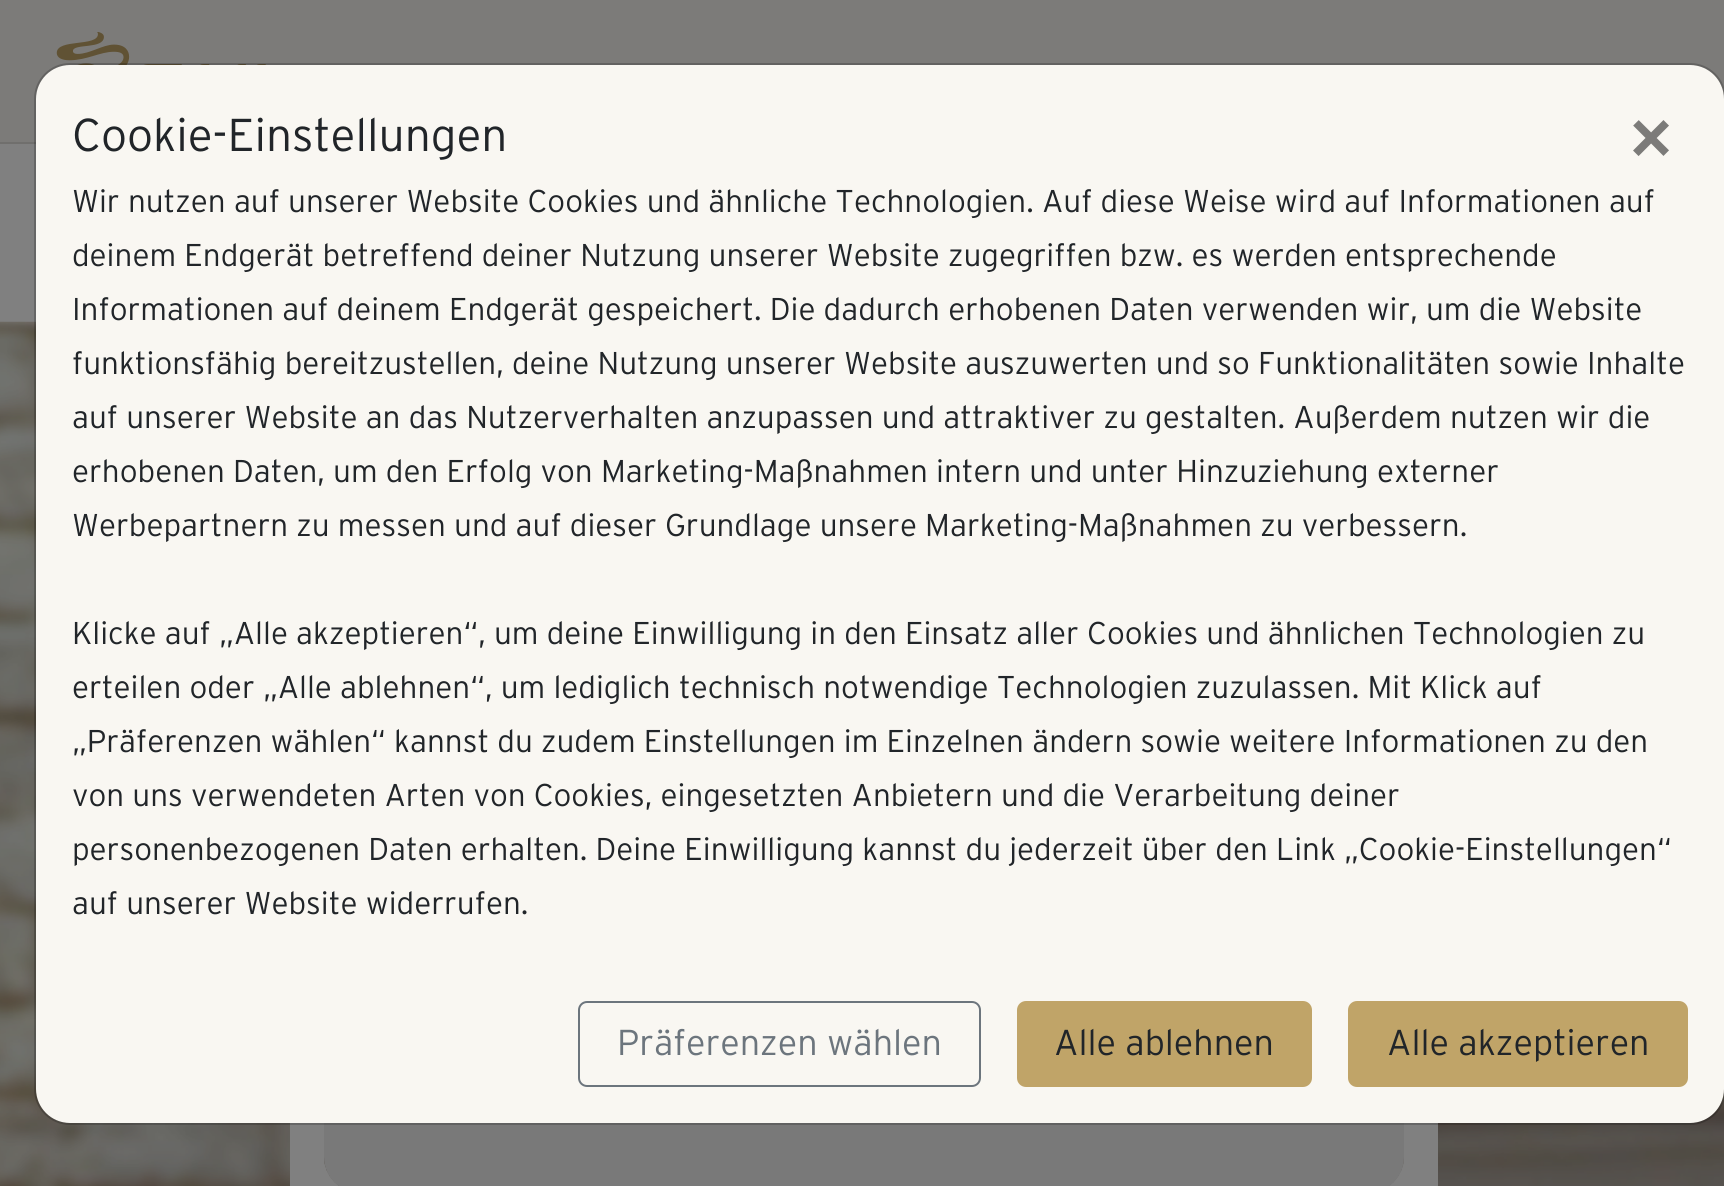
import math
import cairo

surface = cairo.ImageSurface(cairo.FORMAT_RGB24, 1724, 1186)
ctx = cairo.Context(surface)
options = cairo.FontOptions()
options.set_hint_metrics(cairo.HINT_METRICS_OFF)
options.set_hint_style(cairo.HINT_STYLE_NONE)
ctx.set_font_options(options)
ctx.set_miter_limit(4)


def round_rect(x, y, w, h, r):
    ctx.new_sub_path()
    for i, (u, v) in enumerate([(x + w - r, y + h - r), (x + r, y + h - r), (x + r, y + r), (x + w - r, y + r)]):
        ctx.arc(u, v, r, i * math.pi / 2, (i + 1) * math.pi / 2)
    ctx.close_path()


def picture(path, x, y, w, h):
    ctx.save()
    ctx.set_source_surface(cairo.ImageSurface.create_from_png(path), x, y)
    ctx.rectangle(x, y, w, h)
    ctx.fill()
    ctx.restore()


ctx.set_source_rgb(0.502, 0.502, 0.502)
ctx.paint()
ctx.set_source_rgb(0.486, 0.482, 0.475)
ctx.rectangle(0, 0, 1724, 142)
ctx.fill()
ctx.set_source_rgb(0.439, 0.435, 0.427)
ctx.rectangle(0, 142, 36, 2)
ctx.fill()
picture("img1.png", 56, 32, 210, 33)
picture("img2.png", 0, 321, 1724, 865)
ctx.set_source_rgb(0.502, 0.502, 0.502)
ctx.rectangle(324, 1157, 1080, 29)
ctx.fill()
ctx.rectangle(307, 568, 1114, 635)
ctx.set_line_width(34)
ctx.stroke()
picture("img3.png", 324, 1157, 1080, 29)
ctx.set_source_rgb(0.475, 0.475, 0.475)
round_rect(324, 585, 1080, 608, 36)
ctx.fill()
ctx.set_source_rgb(0.973, 0.965, 0.949)
round_rect(36, 65, 1688, 1058, 34)
ctx.fill()
round_rect(35, 64, 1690, 1060, 35)
ctx.set_source_rgba(0, 0, 0, 0.2)
ctx.set_line_width(2)
ctx.stroke()
ctx.select_font_face("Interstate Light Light")
ctx.set_font_size(46)
ctx.set_source_rgb(0.129, 0.145, 0.161)
ctx.move_to(72, 151)
ctx.show_text("Cookie-Einstellungen")
ctx.select_font_face("Liberation Sans", cairo.FONT_SLANT_NORMAL, cairo.FONT_WEIGHT_BOLD)
ctx.set_font_size(72)
ctx.set_source_rgb(0.486, 0.482, 0.475)
ctx.move_to(1630, 162)
ctx.show_text("×")
ctx.select_font_face("Interstate Light Light")
ctx.set_font_size(31.5)
ctx.set_source_rgb(0.129, 0.145, 0.161)
ctx.move_to(72, 212)
ctx.show_text("Wir nutzen auf unserer Website Cookies und ähnliche Technologien. Auf diese Weise wird auf Informationen auf")
ctx.move_to(72, 266)
ctx.show_text("deinem Endgerät betreffend deiner Nutzung unserer Website zugegriffen bzw. es werden entsprechende")
ctx.move_to(72, 320)
ctx.show_text("Informationen auf deinem Endgerät gespeichert. Die dadurch erhobenen Daten verwenden wir, um die Website")
ctx.move_to(72, 374)
ctx.show_text("funktionsfähig bereitzustellen, deine Nutzung unserer Website auszuwerten und so Funktionalitäten sowie Inhalte")
ctx.move_to(72, 428)
ctx.show_text("auf unserer Website an das Nutzerverhalten anzupassen und attraktiver zu gestalten. Außerdem nutzen wir die")
ctx.move_to(72, 482)
ctx.show_text("erhobenen Daten, um den Erfolg von Marketing-Maßnahmen intern und unter Hinzuziehung externer")
ctx.move_to(72, 536)
ctx.show_text("Werbepartnern zu messen und auf dieser Grundlage unsere Marketing-Maßnahmen zu verbessern.")
ctx.move_to(72, 644)
ctx.show_text("Klicke auf „Alle akzeptieren“, um deine Einwilligung in den Einsatz aller Cookies und ähnlichen Technologien zu")
ctx.move_to(72, 698)
ctx.show_text("erteilen oder „Alle ablehnen“, um lediglich technisch notwendige Technologien zuzulassen. Mit Klick auf")
ctx.move_to(72, 752)
ctx.show_text("„Präferenzen wählen“ kannst du zudem Einstellungen im Einzelnen ändern sowie weitere Informationen zu den")
ctx.move_to(72, 806)
ctx.show_text("von uns verwendeten Arten von Cookies, eingesetzten Anbietern und die Verarbeitung deiner")
ctx.move_to(72, 860)
ctx.show_text("personenbezogenen Daten erhalten. Deine Einwilligung kannst du jederzeit über den Link „Cookie-Einstellungen“")
ctx.move_to(72, 914)
ctx.show_text("auf unserer Website widerrufen.")
round_rect(579, 1002, 401, 84, 8)
ctx.set_source_rgb(0.424, 0.459, 0.49)
ctx.stroke()
ctx.set_font_size(36)
ctx.move_to(617, 1055)
ctx.show_text("Präferenzen wählen")
ctx.set_source_rgb(0.753, 0.643, 0.408)
round_rect(1018, 1002, 293, 84, 8)
ctx.fill_preserve()
ctx.stroke()
ctx.set_source_rgb(0.129, 0.145, 0.161)
ctx.move_to(1054, 1055)
ctx.show_text("Alle ablehnen")
ctx.set_source_rgb(0.753, 0.643, 0.408)
round_rect(1349, 1002, 338, 84, 8)
ctx.fill_preserve()
ctx.stroke()
ctx.set_source_rgb(0.129, 0.145, 0.161)
ctx.move_to(1387, 1055)
ctx.show_text("Alle akzeptieren")
surface.write_to_png("page.png")
